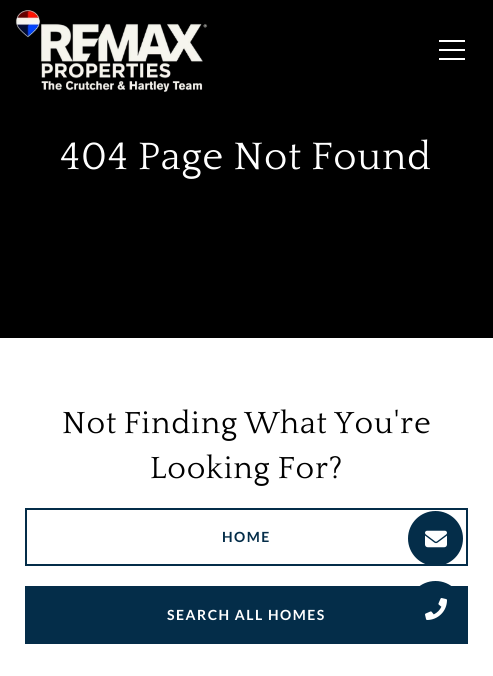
import math
import cairo

surface = cairo.ImageSurface(cairo.FORMAT_RGB24, 493, 676)
ctx = cairo.Context(surface)
options = cairo.FontOptions()
options.set_hint_metrics(cairo.HINT_METRICS_OFF)
options.set_hint_style(cairo.HINT_STYLE_NONE)
ctx.set_font_options(options)
ctx.set_miter_limit(4)


def spaced_text(x, y, s, letter, word):
    ctx.move_to(x, y)
    for ch in s:
        ctx.show_text(ch)
        ctx.rel_move_to(letter + word * (ch == ' '), 0)


def picture(path, x, y, w, h):
    ctx.save()
    ctx.set_source_surface(cairo.ImageSurface.create_from_png(path), x, y)
    ctx.rectangle(x, y, w, h)
    ctx.fill()
    ctx.restore()


ctx.set_source_rgb(1, 1, 1)
ctx.paint()
ctx.set_source_rgb(0, 0, 0)
ctx.rectangle(0, 0, 493, 338)
ctx.fill()
picture("img1.png", 15, 10, 193, 82)
ctx.set_source_rgb(1, 1, 1)
ctx.rectangle(439, 49, 26, 2)
ctx.fill()
ctx.rectangle(439, 40, 26, 2)
ctx.fill()
ctx.rectangle(439, 58, 26, 2)
ctx.fill()
ctx.select_font_face("Quattrocento")
ctx.set_font_size(40)
spaced_text(60, 169, "404 Page Not Found", 0.75, -1)
ctx.set_font_size(32)
ctx.set_source_rgb(0, 0, 0)
spaced_text(62, 433, "Not Finding What You're", 0.75, -2)
spaced_text(150, 478, "Looking For?", 0.75, -1)
ctx.rectangle(26, 509, 441, 56)
ctx.set_source_rgb(0.016, 0.176, 0.286)
ctx.stroke()
ctx.select_font_face("Lato", cairo.FONT_SLANT_NORMAL, cairo.FONT_WEIGHT_BOLD)
ctx.set_font_size(14)
spaced_text(222, 542, "HOME", 1.5, 0)
ctx.rectangle(25, 586, 443, 58)
ctx.fill()
ctx.set_source_rgb(1, 1, 1)
spaced_text(167, 620, "SEARCH ALL HOMES", 1.5, 0)
ctx.set_source_rgb(0.016, 0.176, 0.286)
ctx.new_path()
ctx.arc(435.5, 538.5, 26.5, 0, 2 * math.pi)
ctx.fill_preserve()
ctx.stroke()
picture("img2.png", 425, 530, 22, 18)
ctx.arc(435.5, 608.5, 26.5, 0, 2 * math.pi)
ctx.fill_preserve()
ctx.stroke()
picture("img3.png", 425, 598, 22, 22)
surface.write_to_png("page.png")
